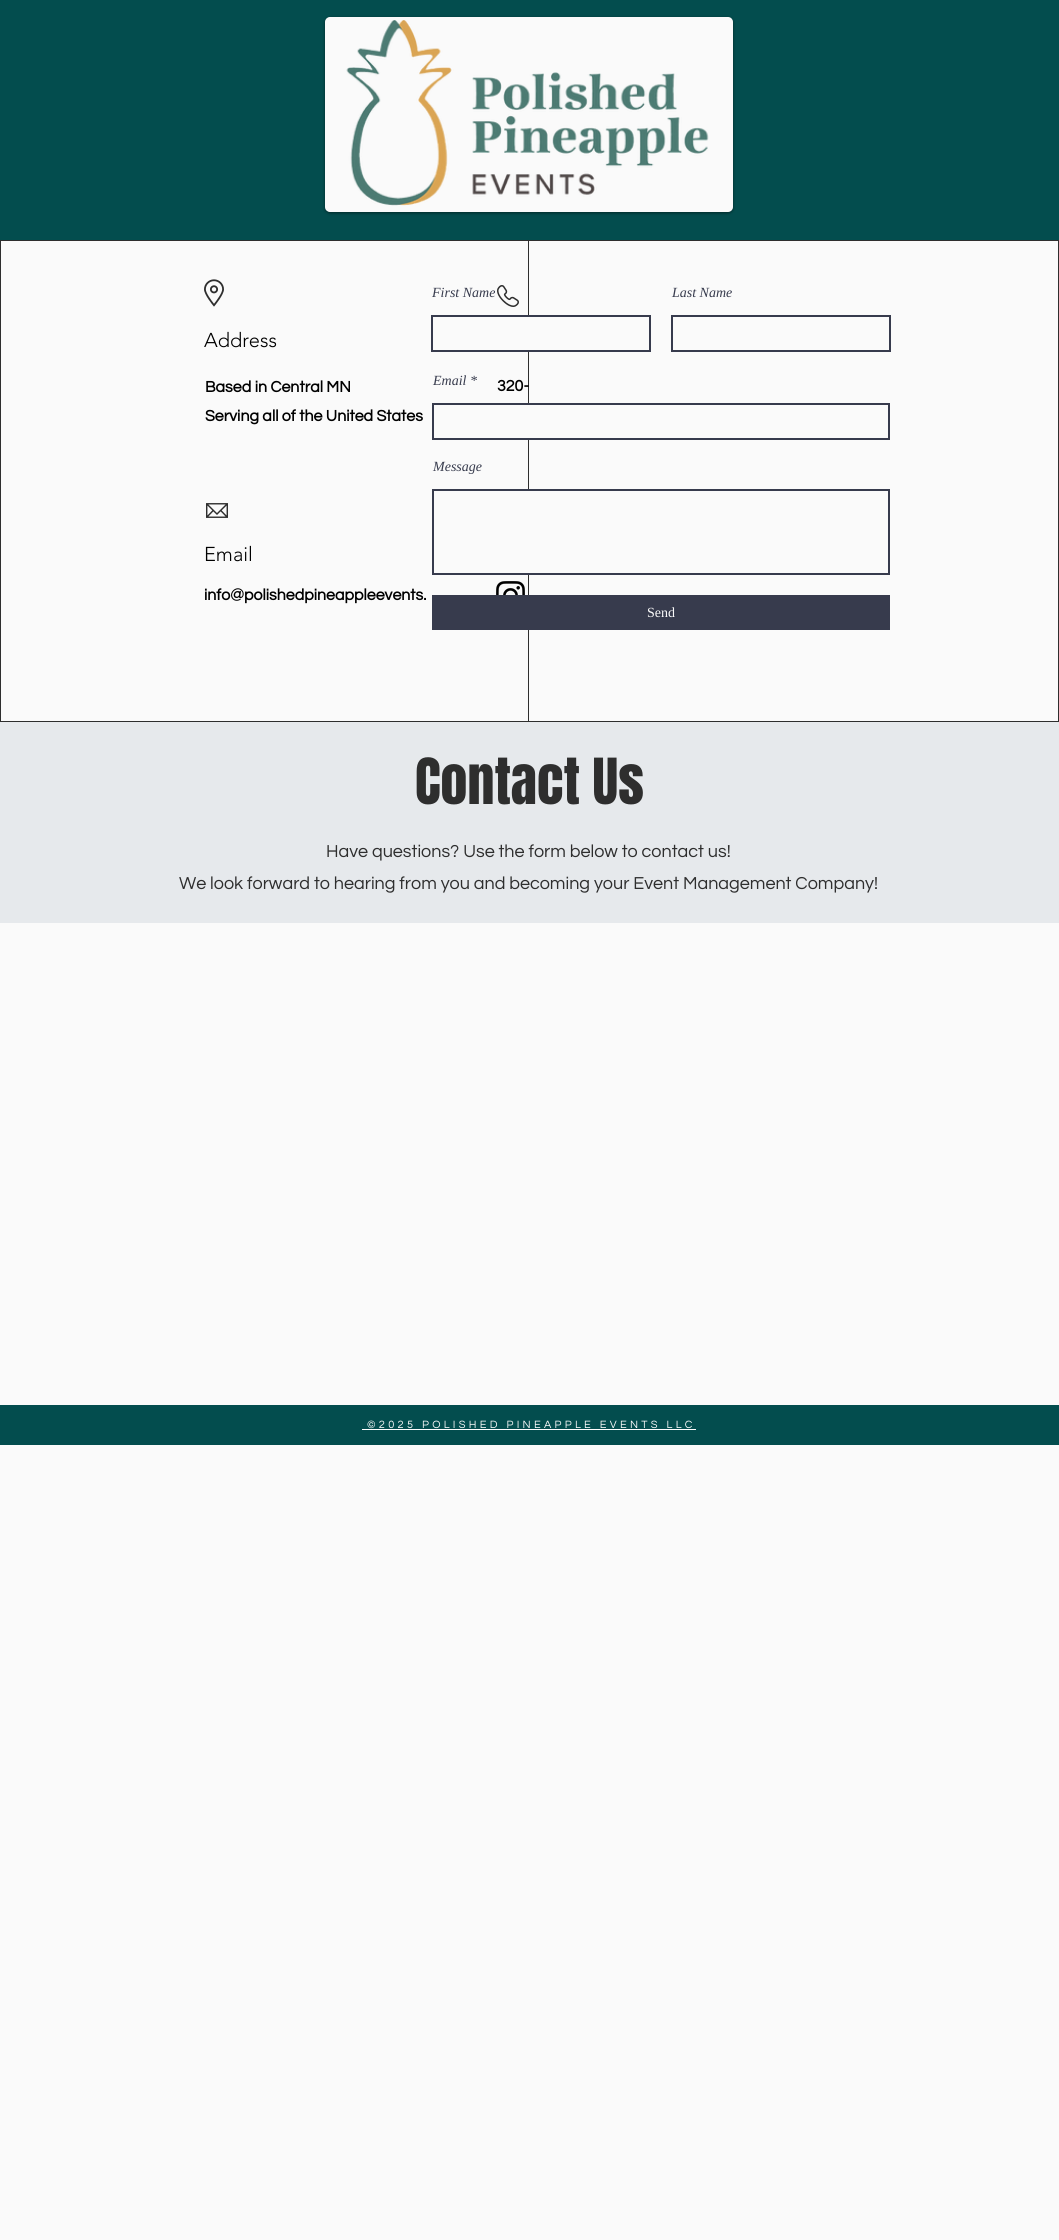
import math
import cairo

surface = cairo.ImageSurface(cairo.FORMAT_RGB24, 1059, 2240)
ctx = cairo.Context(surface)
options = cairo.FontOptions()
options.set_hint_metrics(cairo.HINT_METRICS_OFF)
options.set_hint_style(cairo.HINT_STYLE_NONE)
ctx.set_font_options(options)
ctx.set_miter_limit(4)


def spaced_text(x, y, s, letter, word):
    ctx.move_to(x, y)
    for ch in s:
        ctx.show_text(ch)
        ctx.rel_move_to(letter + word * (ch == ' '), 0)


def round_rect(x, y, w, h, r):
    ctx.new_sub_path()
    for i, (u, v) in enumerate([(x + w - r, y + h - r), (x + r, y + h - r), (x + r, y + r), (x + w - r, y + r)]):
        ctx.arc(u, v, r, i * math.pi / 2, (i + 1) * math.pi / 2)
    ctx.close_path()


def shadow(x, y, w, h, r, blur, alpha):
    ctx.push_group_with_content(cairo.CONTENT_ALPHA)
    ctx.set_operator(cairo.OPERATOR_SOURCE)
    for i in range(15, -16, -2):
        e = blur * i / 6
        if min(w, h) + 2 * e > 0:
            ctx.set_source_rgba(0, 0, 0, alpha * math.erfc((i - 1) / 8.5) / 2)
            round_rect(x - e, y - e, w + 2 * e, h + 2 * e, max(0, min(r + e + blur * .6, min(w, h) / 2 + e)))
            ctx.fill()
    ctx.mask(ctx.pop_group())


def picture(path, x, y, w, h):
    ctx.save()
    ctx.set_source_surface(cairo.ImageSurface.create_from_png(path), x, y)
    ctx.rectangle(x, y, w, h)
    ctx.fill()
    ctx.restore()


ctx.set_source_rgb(0.98, 0.98, 0.98)
ctx.paint()
ctx.set_source_rgb(0.012, 0.302, 0.306)
ctx.rectangle(0, 0, 1059, 240)
ctx.fill()
ctx.set_source_rgb(0, 0, 0)
shadow(325, 18, 408, 195, 5, 1.5, 0.5)
ctx.set_source_rgb(0.98, 0.98, 0.98)
round_rect(326, 18, 406, 193, 4)
ctx.fill_preserve()
ctx.stroke()
picture("img1.png", 346, 20, 363, 186)
ctx.set_source_rgb(0.18, 0.18, 0.18)
ctx.rectangle(0, 240, 1059, 482)
ctx.fill()
ctx.set_source_rgb(0.98, 0.98, 0.98)
ctx.rectangle(1, 241, 527, 480)
ctx.fill()
picture("img2.png", 204, 279, 20, 28)
picture("img3.png", 497, 285, 22, 22)
ctx.select_font_face("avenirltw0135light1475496 Light")
ctx.set_font_size(20)
ctx.set_source_rgb(0, 0, 0)
ctx.move_to(204, 347)
ctx.show_text("Address")
ctx.select_font_face("Questrial", cairo.FONT_SLANT_NORMAL, cairo.FONT_WEIGHT_BOLD)
ctx.set_font_size(16)
ctx.move_to(205, 392)
ctx.show_text("Based in Central MN")
ctx.move_to(205, 421)
ctx.show_text("Serving all of the United States")
ctx.move_to(497, 391)
ctx.show_text("320-")
picture("img4.png", 206, 503, 22, 15)
ctx.select_font_face("avenirltw0135light1475496 Light")
ctx.set_font_size(20)
ctx.move_to(204, 561)
ctx.show_text("Email")
ctx.select_font_face("Questrial", cairo.FONT_SLANT_NORMAL, cairo.FONT_WEIGHT_BOLD)
ctx.set_font_size(16)
ctx.move_to(204, 600)
ctx.show_text("info@polishedpineappleevents.")
picture("img5.png", 496, 581, 29, 14)
ctx.set_source_rgb(0.98, 0.98, 0.98)
ctx.rectangle(529, 241, 529, 480)
ctx.fill()
ctx.select_font_face("Liberation Serif", cairo.FONT_SLANT_ITALIC)
ctx.set_font_size(14)
ctx.set_source_rgb(0.216, 0.231, 0.302)
ctx.move_to(432, 297)
ctx.show_text("First Name")
ctx.set_source_rgb(0.98, 0.98, 0.98)
ctx.rectangle(528, 317, 1, 33)
ctx.fill()
ctx.rectangle(432, 316, 218, 35)
ctx.set_source_rgb(0.216, 0.231, 0.302)
ctx.stroke()
ctx.move_to(672, 297)
ctx.show_text("Last Name")
ctx.rectangle(672, 316, 218, 35)
ctx.stroke()
ctx.move_to(433, 385)
ctx.show_text("Email *")
ctx.set_source_rgb(0.98, 0.98, 0.98)
ctx.rectangle(528, 405, 1, 33)
ctx.fill()
ctx.rectangle(433, 404, 456, 35)
ctx.set_source_rgb(0.216, 0.231, 0.302)
ctx.stroke()
ctx.move_to(433, 471)
ctx.show_text("Message")
ctx.set_source_rgb(0.98, 0.98, 0.98)
ctx.rectangle(528, 491, 1, 82)
ctx.fill()
ctx.rectangle(433, 490, 456, 84)
ctx.set_source_rgb(0.216, 0.231, 0.302)
ctx.stroke()
ctx.rectangle(432, 595, 458, 35)
ctx.fill()
ctx.select_font_face("Liberation Serif")
ctx.set_source_rgb(0.98, 0.98, 0.98)
ctx.move_to(647, 617)
ctx.show_text("Send")
ctx.set_source_rgb(0.902, 0.914, 0.922)
ctx.rectangle(0, 722, 1059, 201)
ctx.fill()
ctx.select_font_face("Anton")
ctx.set_font_size(54)
ctx.set_source_rgb(0.18, 0.18, 0.18)
ctx.move_to(415, 804)
ctx.show_text("Contact Us")
ctx.select_font_face("Questrial")
ctx.set_font_size(18)
ctx.move_to(326, 857)
ctx.show_text("Have questions? Use the form below to contact us!")
ctx.move_to(179, 889)
ctx.show_text("We look forward to hearing from you and becoming your Event Management Company!")
ctx.set_source_rgb(0.012, 0.302, 0.306)
ctx.rectangle(0, 1405, 1059, 40)
ctx.fill()
ctx.set_font_size(11)
ctx.set_source_rgb(0.98, 0.98, 0.98)
spaced_text(367, 1428, "©2025 POLISHED PINEAPPLE EVENTS LLC", 3.3, 0)
ctx.set_source_rgb(1, 1, 1)
ctx.rectangle(362, 1429, 334, 1)
ctx.fill()
surface.write_to_png("page.png")
